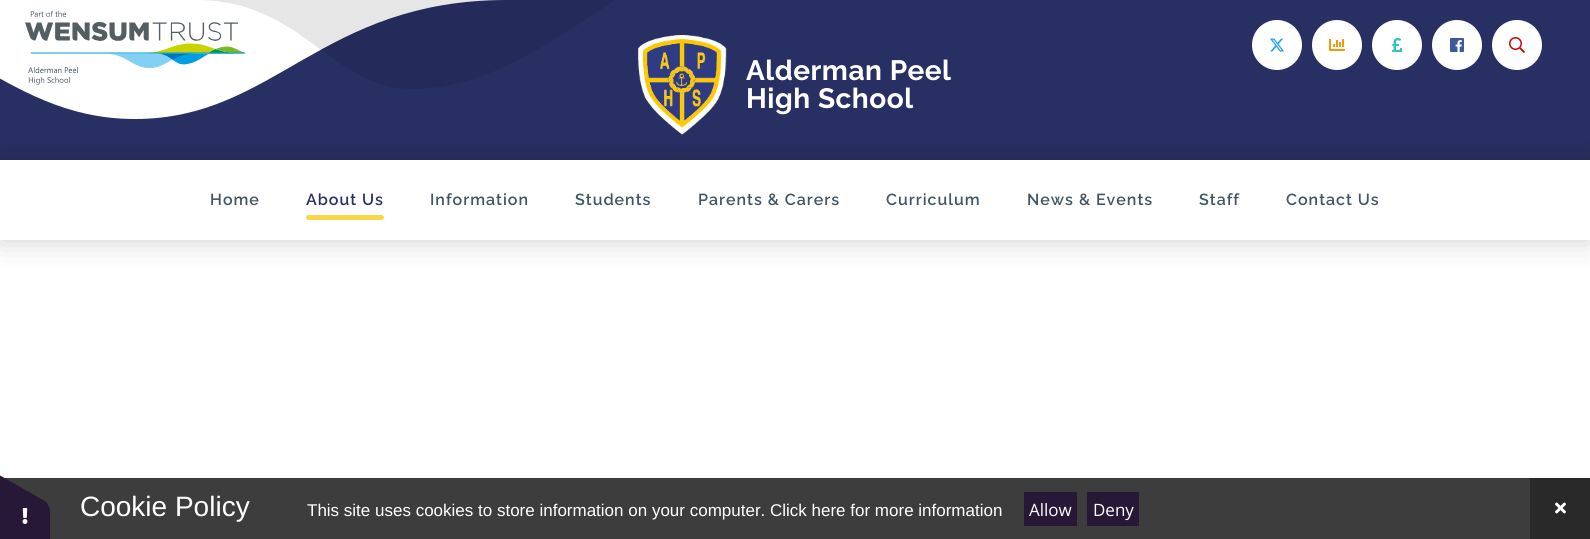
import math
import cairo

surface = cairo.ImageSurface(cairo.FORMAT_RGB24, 1590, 539)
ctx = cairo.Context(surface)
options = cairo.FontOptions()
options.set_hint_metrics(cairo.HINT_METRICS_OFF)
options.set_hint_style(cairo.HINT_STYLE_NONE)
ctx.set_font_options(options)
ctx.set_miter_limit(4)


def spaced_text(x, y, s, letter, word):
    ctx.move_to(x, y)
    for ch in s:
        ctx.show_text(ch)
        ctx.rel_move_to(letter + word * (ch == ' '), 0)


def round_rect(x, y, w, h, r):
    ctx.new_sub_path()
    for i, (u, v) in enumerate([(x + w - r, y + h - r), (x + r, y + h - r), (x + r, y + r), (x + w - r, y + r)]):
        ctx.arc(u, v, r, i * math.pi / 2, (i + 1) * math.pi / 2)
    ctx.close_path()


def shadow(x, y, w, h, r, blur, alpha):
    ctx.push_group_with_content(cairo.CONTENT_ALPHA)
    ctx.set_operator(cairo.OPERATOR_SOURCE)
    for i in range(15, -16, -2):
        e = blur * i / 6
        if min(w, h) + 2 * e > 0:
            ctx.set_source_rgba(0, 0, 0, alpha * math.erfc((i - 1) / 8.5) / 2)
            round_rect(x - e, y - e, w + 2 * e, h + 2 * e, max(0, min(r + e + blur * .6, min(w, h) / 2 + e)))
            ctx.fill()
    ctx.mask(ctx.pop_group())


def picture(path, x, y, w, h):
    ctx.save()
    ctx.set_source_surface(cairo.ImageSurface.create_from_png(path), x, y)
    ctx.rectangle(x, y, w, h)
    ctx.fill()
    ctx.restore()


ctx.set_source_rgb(1, 1, 1)
ctx.paint()
ctx.set_source_rgb(0.157, 0.184, 0.388)
ctx.rectangle(0, 0, 1590, 160)
ctx.fill()
ctx.set_source_rgb(1, 1, 1)
ctx.new_path()
ctx.move_to(-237, 0)
ctx.line_to(507, 0)
ctx.curve_to(320, 0, 275, 119, 135, 119)
ctx.curve_to(-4, 119, -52, 0, -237, 0)
ctx.fill()
ctx.set_source_rgba(0, 0, 0, 0.1)
ctx.new_path()
ctx.move_to(615, 0)
ctx.line_to(196, 0)
ctx.curve_to(303, 0, 331, 89, 412, 89)
ctx.curve_to(488, 89, 550, 42, 614, 1)
ctx.close_path()
ctx.fill()
picture("img1.png", 25, 10, 220, 75)
ctx.set_source_rgb(1, 1, 1)
ctx.arc(1277, 45, 24, 0, 2 * math.pi)
ctx.fill_preserve()
ctx.stroke()
picture("img2.png", 1270, 38, 15, 14)
ctx.arc(1337, 45, 24, 0, 2 * math.pi)
ctx.fill_preserve()
ctx.stroke()
picture("img3.png", 1329, 39, 16, 12)
ctx.arc(1397, 45, 24, 0, 2 * math.pi)
ctx.fill_preserve()
ctx.stroke()
picture("img4.png", 1392, 38, 10, 14)
ctx.arc(1457, 45, 24, 0, 2 * math.pi)
ctx.fill_preserve()
ctx.stroke()
picture("img5.png", 1450, 38, 14, 14)
ctx.arc(1517, 45, 24, 0, 2 * math.pi)
ctx.fill_preserve()
ctx.stroke()
picture("img6.png", 1509, 37, 16, 16)
picture("img7.png", 638, 35, 89, 100)
ctx.select_font_face("Raleway", cairo.FONT_SLANT_NORMAL, cairo.FONT_WEIGHT_BOLD)
ctx.set_font_size(28)
spaced_text(746, 80, "Alderman Peel", 0.5, 0)
spaced_text(746, 108, "High School", 0.5, 0)
ctx.save()
ctx.set_fill_rule(cairo.FILL_RULE_EVEN_ODD)
ctx.new_path()
ctx.move_to(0, 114)
ctx.line_to(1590, 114)
ctx.line_to(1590, 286)
ctx.line_to(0, 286)
ctx.close_path()
ctx.move_to(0, 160)
ctx.line_to(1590, 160)
ctx.line_to(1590, 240)
ctx.line_to(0, 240)
ctx.close_path()
ctx.clip()
ctx.set_source_rgb(0, 0, 0)
shadow(0, 160, 1590, 80, 0, 15, 0.2)
ctx.restore()
ctx.select_font_face("Raleway SemiBold")
ctx.set_font_size(16)
ctx.set_source_rgb(0.259, 0.333, 0.388)
spaced_text(210, 205, "Home", 1, 0)
ctx.set_source_rgb(0.157, 0.184, 0.388)
spaced_text(306, 205, "About Us", 1, 0)
ctx.set_source_rgb(0.973, 0.835, 0.282)
round_rect(306, 215, 78, 5, 2.5)
ctx.fill()
ctx.set_source_rgb(0.259, 0.333, 0.388)
spaced_text(430, 205, "Information", 1, 0)
spaced_text(575, 205, "Students", 1, 0)
spaced_text(698, 205, "Parents & Carers", 1, 0)
spaced_text(886, 205, "Curriculum", 1, 0)
spaced_text(1027, 205, "News & Events", 1, 0)
spaced_text(1199, 205, "Staff", 1, 0)
spaced_text(1286, 205, "Contact Us", 1, 0)
ctx.set_source_rgb(0.239, 0.239, 0.239)
ctx.rectangle(4, 478, 1526, 61)
ctx.fill()
ctx.set_source_rgb(0.157, 0.094, 0.22)
ctx.new_path()
ctx.move_to(50, 512)
ctx.line_to(50, 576)
ctx.curve_to(50, 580, 48, 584, 46, 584)
ctx.line_to(-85, 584)
ctx.curve_to(-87, 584, -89, 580, -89, 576)
ctx.line_to(-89, 512)
ctx.curve_to(-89, 507, -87, 504, -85, 504)
ctx.line_to(46, 504)
ctx.curve_to(48, 504, 50, 507, 50, 512)
ctx.close_path()
ctx.fill()
ctx.new_path()
ctx.move_to(-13, 468)
ctx.line_to(43, 500)
ctx.curve_to(47, 502, 49, 505, 48, 507)
ctx.line_to(-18, 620)
ctx.curve_to(-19, 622, -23, 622, -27, 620)
ctx.line_to(-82, 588)
ctx.curve_to(-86, 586, -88, 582, -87, 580)
ctx.line_to(-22, 467)
ctx.curve_to(-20, 465, -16, 466, -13, 468)
ctx.close_path()
ctx.fill()
picture("img8.png", 22, 508, 6, 16)
ctx.select_font_face("Liberation Sans")
ctx.set_font_size(28)
ctx.set_source_rgb(1, 1, 1)
ctx.move_to(80, 516)
ctx.show_text("Cookie Policy")
ctx.set_font_size(17)
ctx.move_to(307, 516)
ctx.show_text("This site uses cookies to store information on your computer. Click here for more information")
ctx.set_source_rgb(0.157, 0.094, 0.22)
ctx.rectangle(1024, 492, 53, 34)
ctx.fill()
ctx.select_font_face("Open Sans")
ctx.set_source_rgb(1, 1, 1)
ctx.move_to(1029, 516)
ctx.show_text("Allow")
ctx.set_source_rgb(0.157, 0.094, 0.22)
ctx.rectangle(1087, 492, 52, 34)
ctx.fill()
ctx.set_source_rgb(1, 1, 1)
ctx.move_to(1093, 516)
ctx.show_text("Deny")
ctx.set_source_rgb(0.161, 0.161, 0.161)
ctx.rectangle(1530, 478, 60, 61)
ctx.fill()
picture("img9.png", 1555, 502, 11, 12)
surface.write_to_png("page.png")
